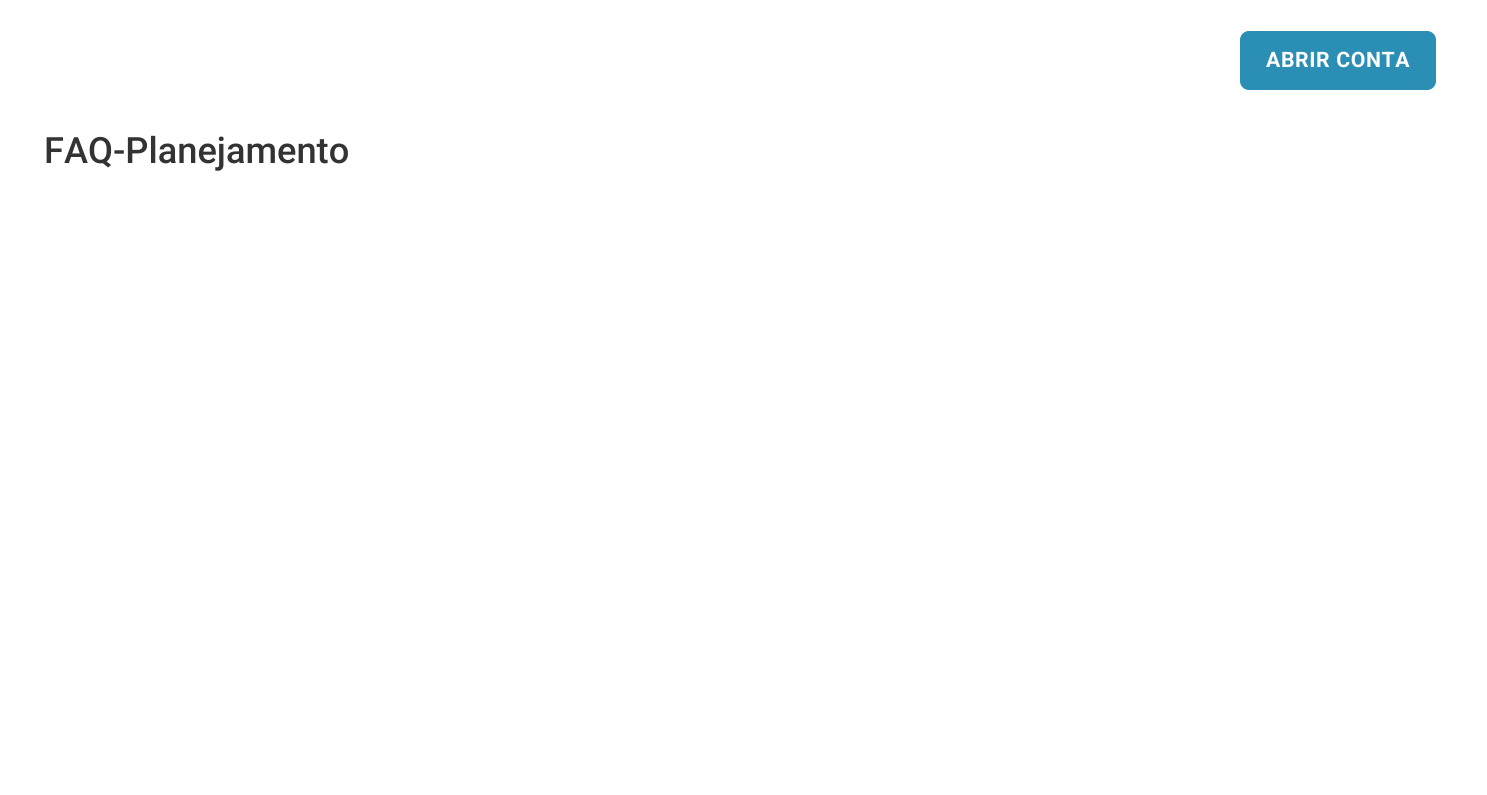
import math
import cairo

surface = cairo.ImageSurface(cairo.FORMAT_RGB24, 1487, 795)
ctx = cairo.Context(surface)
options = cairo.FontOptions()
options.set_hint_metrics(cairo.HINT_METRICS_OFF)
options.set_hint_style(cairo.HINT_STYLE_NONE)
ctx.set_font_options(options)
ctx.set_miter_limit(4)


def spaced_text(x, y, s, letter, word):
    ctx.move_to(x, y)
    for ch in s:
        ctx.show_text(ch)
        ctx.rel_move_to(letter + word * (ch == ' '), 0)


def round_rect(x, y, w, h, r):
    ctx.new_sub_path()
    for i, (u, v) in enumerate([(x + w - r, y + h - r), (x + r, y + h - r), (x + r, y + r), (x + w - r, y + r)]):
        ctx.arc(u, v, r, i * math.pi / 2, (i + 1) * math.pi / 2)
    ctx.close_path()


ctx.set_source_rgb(1, 1, 1)
ctx.paint()
ctx.set_source_rgb(0.169, 0.557, 0.71)
round_rect(1240.5, 31.5, 195, 58, 8.5)
ctx.fill_preserve()
ctx.set_line_width(1)
ctx.stroke()
ctx.select_font_face("Roboto", cairo.FONT_SLANT_NORMAL, cairo.FONT_WEIGHT_BOLD)
ctx.set_font_size(21.25)
ctx.set_source_rgb(1, 1, 1)
spaced_text(1266, 67, "ABRIR CONTA", 0.6, 0)
ctx.select_font_face("Roboto Medium")
ctx.set_font_size(36.25)
ctx.set_source_rgb(0.2, 0.2, 0.2)
ctx.move_to(44, 163)
ctx.show_text("FAQ-Planejamento")
surface.write_to_png("page.png")
